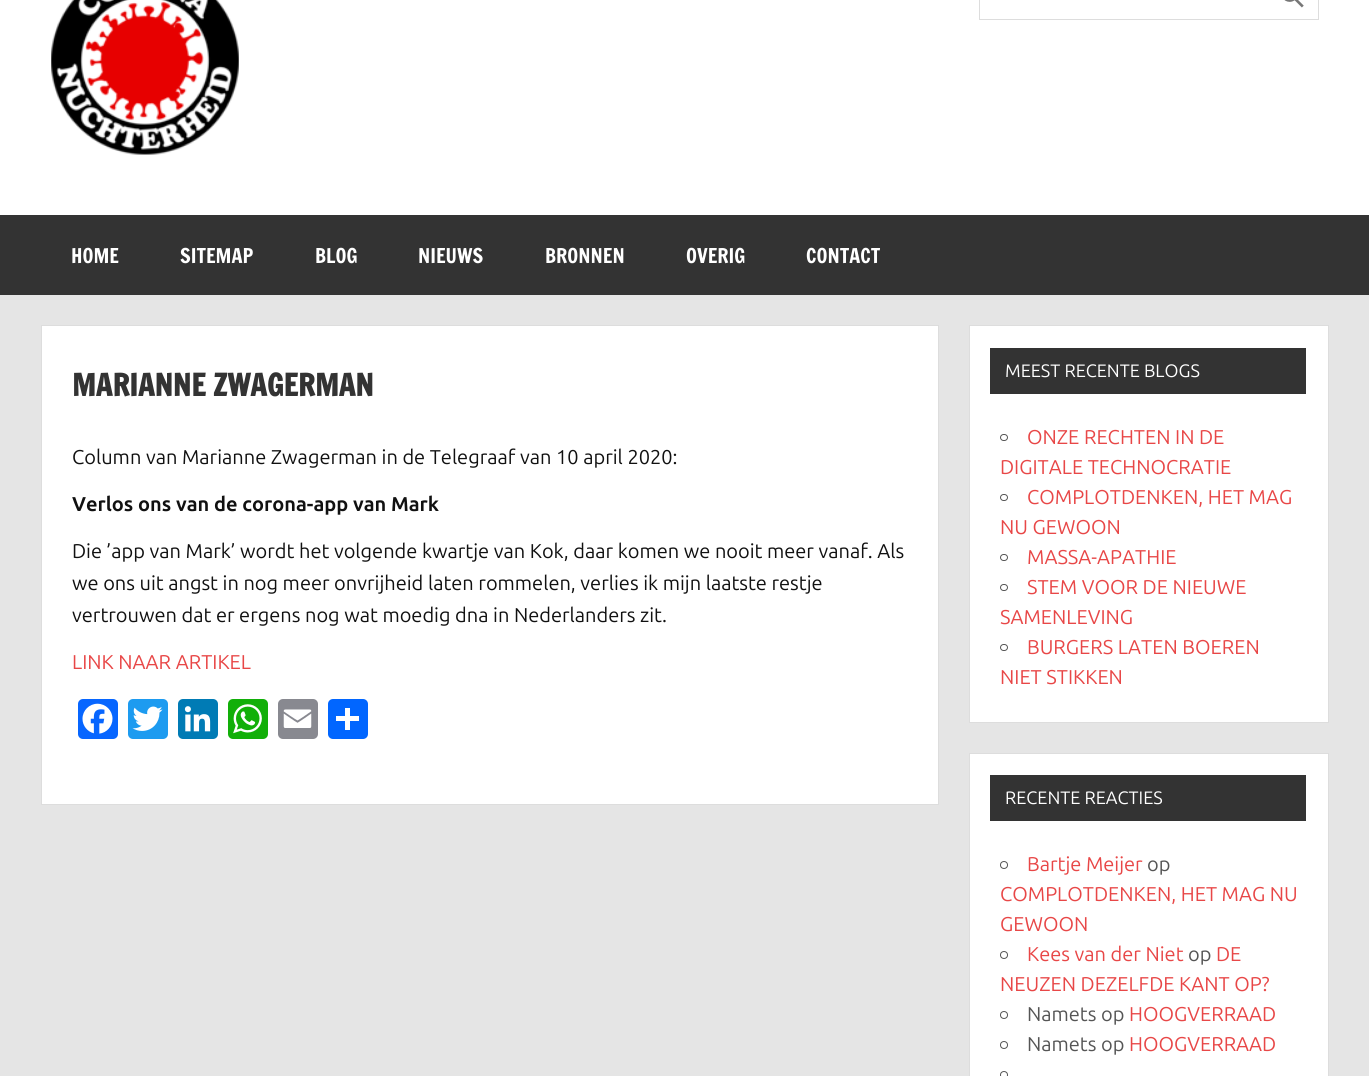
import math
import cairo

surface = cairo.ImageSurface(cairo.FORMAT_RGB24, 1369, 1076)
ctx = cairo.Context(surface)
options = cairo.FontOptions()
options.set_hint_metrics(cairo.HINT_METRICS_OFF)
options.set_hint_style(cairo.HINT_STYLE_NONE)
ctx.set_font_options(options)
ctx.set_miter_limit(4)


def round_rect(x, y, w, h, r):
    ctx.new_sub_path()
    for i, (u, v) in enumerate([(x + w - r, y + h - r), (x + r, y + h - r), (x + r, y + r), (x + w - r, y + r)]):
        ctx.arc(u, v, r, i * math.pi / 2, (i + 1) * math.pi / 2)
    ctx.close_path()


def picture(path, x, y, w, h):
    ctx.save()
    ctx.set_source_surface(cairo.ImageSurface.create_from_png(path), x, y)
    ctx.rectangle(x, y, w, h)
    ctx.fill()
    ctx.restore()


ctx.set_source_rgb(0.898, 0.898, 0.898)
ctx.paint()
ctx.set_source_rgb(1, 1, 1)
ctx.rectangle(0, 0, 1369, 215)
ctx.fill()
picture("img1.png", 51, 0, 188, 155)
ctx.rectangle(979.5, -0.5, 339, 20)
ctx.set_source_rgb(0.867, 0.867, 0.867)
ctx.set_line_width(1)
ctx.stroke()
picture("img2.png", 1284, 0, 20, 8)
ctx.set_source_rgb(0.2, 0.2, 0.2)
ctx.rectangle(0, 215, 1369, 80)
ctx.fill()
ctx.select_font_face("Francois One")
ctx.set_font_size(20)
ctx.set_source_rgb(1, 1, 1)
ctx.move_to(71, 263)
ctx.show_text("HOME")
ctx.move_to(180, 263)
ctx.show_text("SITEMAP")
ctx.move_to(315, 263)
ctx.show_text("BLOG")
ctx.move_to(418, 263)
ctx.show_text("NIEUWS")
ctx.move_to(545, 263)
ctx.show_text("BRONNEN")
ctx.move_to(686, 263)
ctx.show_text("OVERIG")
ctx.move_to(806, 263)
ctx.show_text("CONTACT")
ctx.rectangle(41.5, 325.5, 897, 479)
ctx.fill_preserve()
ctx.set_source_rgb(0.867, 0.867, 0.867)
ctx.stroke()
ctx.select_font_face("Francois One", cairo.FONT_SLANT_NORMAL, cairo.FONT_WEIGHT_BOLD)
ctx.set_font_size(30)
ctx.set_source_rgb(0.2, 0.2, 0.2)
ctx.move_to(72, 396)
ctx.show_text("MARIANNE ZWAGERMAN")
ctx.select_font_face("Ubuntu")
ctx.set_font_size(20)
ctx.set_source_rgb(0.067, 0.067, 0.067)
ctx.move_to(72, 464)
ctx.show_text("Column van Marianne Zwagerman in de Telegraaf van 10 april 2020:")
ctx.select_font_face("Ubuntu", cairo.FONT_SLANT_NORMAL, cairo.FONT_WEIGHT_BOLD)
ctx.move_to(72, 511)
ctx.show_text("Verlos ons van de corona-app van Mark")
ctx.select_font_face("Ubuntu")
ctx.move_to(72, 558)
ctx.show_text("Die ’app van Mark’ wordt het volgende kwartje van Kok, daar komen we nooit meer vanaf. Als")
ctx.move_to(72, 590)
ctx.show_text("we ons uit angst in nog meer onvrijheid laten rommelen, verlies ik mijn laatste restje")
ctx.move_to(72, 622)
ctx.show_text("vertrouwen dat er ergens nog wat moedig dna in Nederlanders zit.")
ctx.set_source_rgb(0.91, 0.278, 0.278)
ctx.move_to(72, 669)
ctx.show_text("LINK NAAR ARTIKEL")
ctx.set_source_rgb(0.031, 0.4, 1)
round_rect(78, 699, 40, 40, 5)
ctx.fill()
picture("img3.png", 82, 703, 31, 31)
ctx.set_source_rgb(0.114, 0.608, 0.941)
round_rect(128, 699, 40, 40, 5)
ctx.fill()
picture("img4.png", 132, 706, 31, 25)
ctx.set_source_rgb(0, 0.482, 0.71)
round_rect(178, 699, 40, 40, 5)
ctx.fill()
picture("img5.png", 184, 706, 27, 26)
ctx.set_source_rgb(0.071, 0.686, 0.039)
round_rect(228, 699, 40, 40, 5)
ctx.fill()
picture("img6.png", 233, 704, 29, 30)
ctx.set_source_rgb(0.533, 0.537, 0.565)
round_rect(278, 699, 40, 40, 5)
ctx.fill()
picture("img7.png", 283, 709, 29, 19)
ctx.set_source_rgb(0.004, 0.4, 1)
round_rect(328, 699, 40, 40, 5)
ctx.fill()
ctx.set_source_rgb(1, 1, 1)
ctx.rectangle(345, 708, 5, 22)
ctx.fill()
ctx.rectangle(336, 716, 23, 5)
ctx.fill()
ctx.rectangle(969.5, 325.5, 359, 397)
ctx.fill_preserve()
ctx.set_source_rgb(0.867, 0.867, 0.867)
ctx.stroke()
ctx.set_source_rgb(0.2, 0.2, 0.2)
ctx.rectangle(990, 348, 316, 46)
ctx.fill()
ctx.set_font_size(18)
ctx.set_source_rgb(1, 1, 1)
ctx.move_to(1005, 377)
ctx.show_text("MEEST RECENTE BLOGS")
round_rect(1000.5, 434.5, 7, 6, 3)
ctx.set_source_rgb(0.333, 0.333, 0.333)
ctx.stroke()
ctx.set_font_size(20)
ctx.set_source_rgb(0.91, 0.278, 0.278)
ctx.move_to(1027, 444)
ctx.show_text("ONZE RECHTEN IN DE")
ctx.move_to(1000, 474)
ctx.show_text("DIGITALE TECHNOCRATIE")
round_rect(1000.5, 494.5, 7, 6, 3)
ctx.set_source_rgb(0.333, 0.333, 0.333)
ctx.stroke()
ctx.set_source_rgb(0.91, 0.278, 0.278)
ctx.move_to(1027, 504)
ctx.show_text("COMPLOTDENKEN, HET MAG")
ctx.move_to(1000, 534)
ctx.show_text("NU GEWOON")
round_rect(1000.5, 554.5, 7, 6, 3)
ctx.set_source_rgb(0.333, 0.333, 0.333)
ctx.stroke()
ctx.set_source_rgb(0.91, 0.278, 0.278)
ctx.move_to(1027, 564)
ctx.show_text("MASSA-APATHIE")
round_rect(1000.5, 584.5, 7, 6, 3)
ctx.set_source_rgb(0.333, 0.333, 0.333)
ctx.stroke()
ctx.set_source_rgb(0.91, 0.278, 0.278)
ctx.move_to(1027, 594)
ctx.show_text("STEM VOOR DE NIEUWE")
ctx.move_to(1000, 624)
ctx.show_text("SAMENLEVING")
round_rect(1000.5, 644.5, 7, 6, 3)
ctx.set_source_rgb(0.333, 0.333, 0.333)
ctx.stroke()
ctx.set_source_rgb(0.91, 0.278, 0.278)
ctx.move_to(1027, 654)
ctx.show_text("BURGERS LATEN BOEREN")
ctx.move_to(1000, 684)
ctx.show_text("NIET STIKKEN")
ctx.set_source_rgb(1, 1, 1)
ctx.rectangle(969.5, 753.5, 359, 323)
ctx.fill_preserve()
ctx.set_source_rgb(0.867, 0.867, 0.867)
ctx.stroke()
ctx.set_source_rgb(0.2, 0.2, 0.2)
ctx.rectangle(990, 775, 316, 46)
ctx.fill()
ctx.set_font_size(18)
ctx.set_source_rgb(1, 1, 1)
ctx.move_to(1005, 804)
ctx.show_text("RECENTE REACTIES")
ctx.new_path()
ctx.arc(1004, 865, 3.5, 0, 2 * math.pi)
ctx.set_source_rgb(0.333, 0.333, 0.333)
ctx.stroke()
ctx.set_font_size(20)
ctx.set_source_rgb(0.91, 0.278, 0.278)
ctx.move_to(1027, 871)
ctx.show_text("Bartje Meijer")
ctx.set_source_rgb(0.333, 0.333, 0.333)
ctx.move_to(1147, 871)
ctx.show_text("op")
ctx.set_source_rgb(0.91, 0.278, 0.278)
ctx.move_to(1000, 901)
ctx.show_text("COMPLOTDENKEN, HET MAG NU")
ctx.move_to(1000, 931)
ctx.show_text("GEWOON")
ctx.new_path()
ctx.arc(1004, 955, 3.5, 0, 2 * math.pi)
ctx.set_source_rgb(0.333, 0.333, 0.333)
ctx.stroke()
ctx.set_source_rgb(0.91, 0.278, 0.278)
ctx.move_to(1027, 961)
ctx.show_text("Kees van der Niet")
ctx.set_source_rgb(0.333, 0.333, 0.333)
ctx.move_to(1188, 961)
ctx.show_text("op")
ctx.set_source_rgb(0.91, 0.278, 0.278)
ctx.move_to(1216, 961)
ctx.show_text("DE")
ctx.move_to(1000, 991)
ctx.show_text("NEUZEN DEZELFDE KANT OP?")
ctx.new_path()
ctx.arc(1004, 1015, 3.5, 0, 2 * math.pi)
ctx.set_source_rgb(0.333, 0.333, 0.333)
ctx.stroke()
ctx.move_to(1027, 1021)
ctx.show_text("Namets op")
ctx.set_source_rgb(0.91, 0.278, 0.278)
ctx.move_to(1129, 1021)
ctx.show_text("HOOGVERRAAD")
ctx.new_path()
ctx.arc(1004, 1045, 3.5, 0, 2 * math.pi)
ctx.set_source_rgb(0.333, 0.333, 0.333)
ctx.stroke()
ctx.move_to(1027, 1051)
ctx.show_text("Namets op")
ctx.set_source_rgb(0.91, 0.278, 0.278)
ctx.move_to(1129, 1051)
ctx.show_text("HOOGVERRAAD")
ctx.new_path()
ctx.arc(1004, 1075, 3.5, 0, 2 * math.pi)
ctx.set_source_rgb(0.333, 0.333, 0.333)
ctx.stroke()
surface.write_to_png("page.png")
